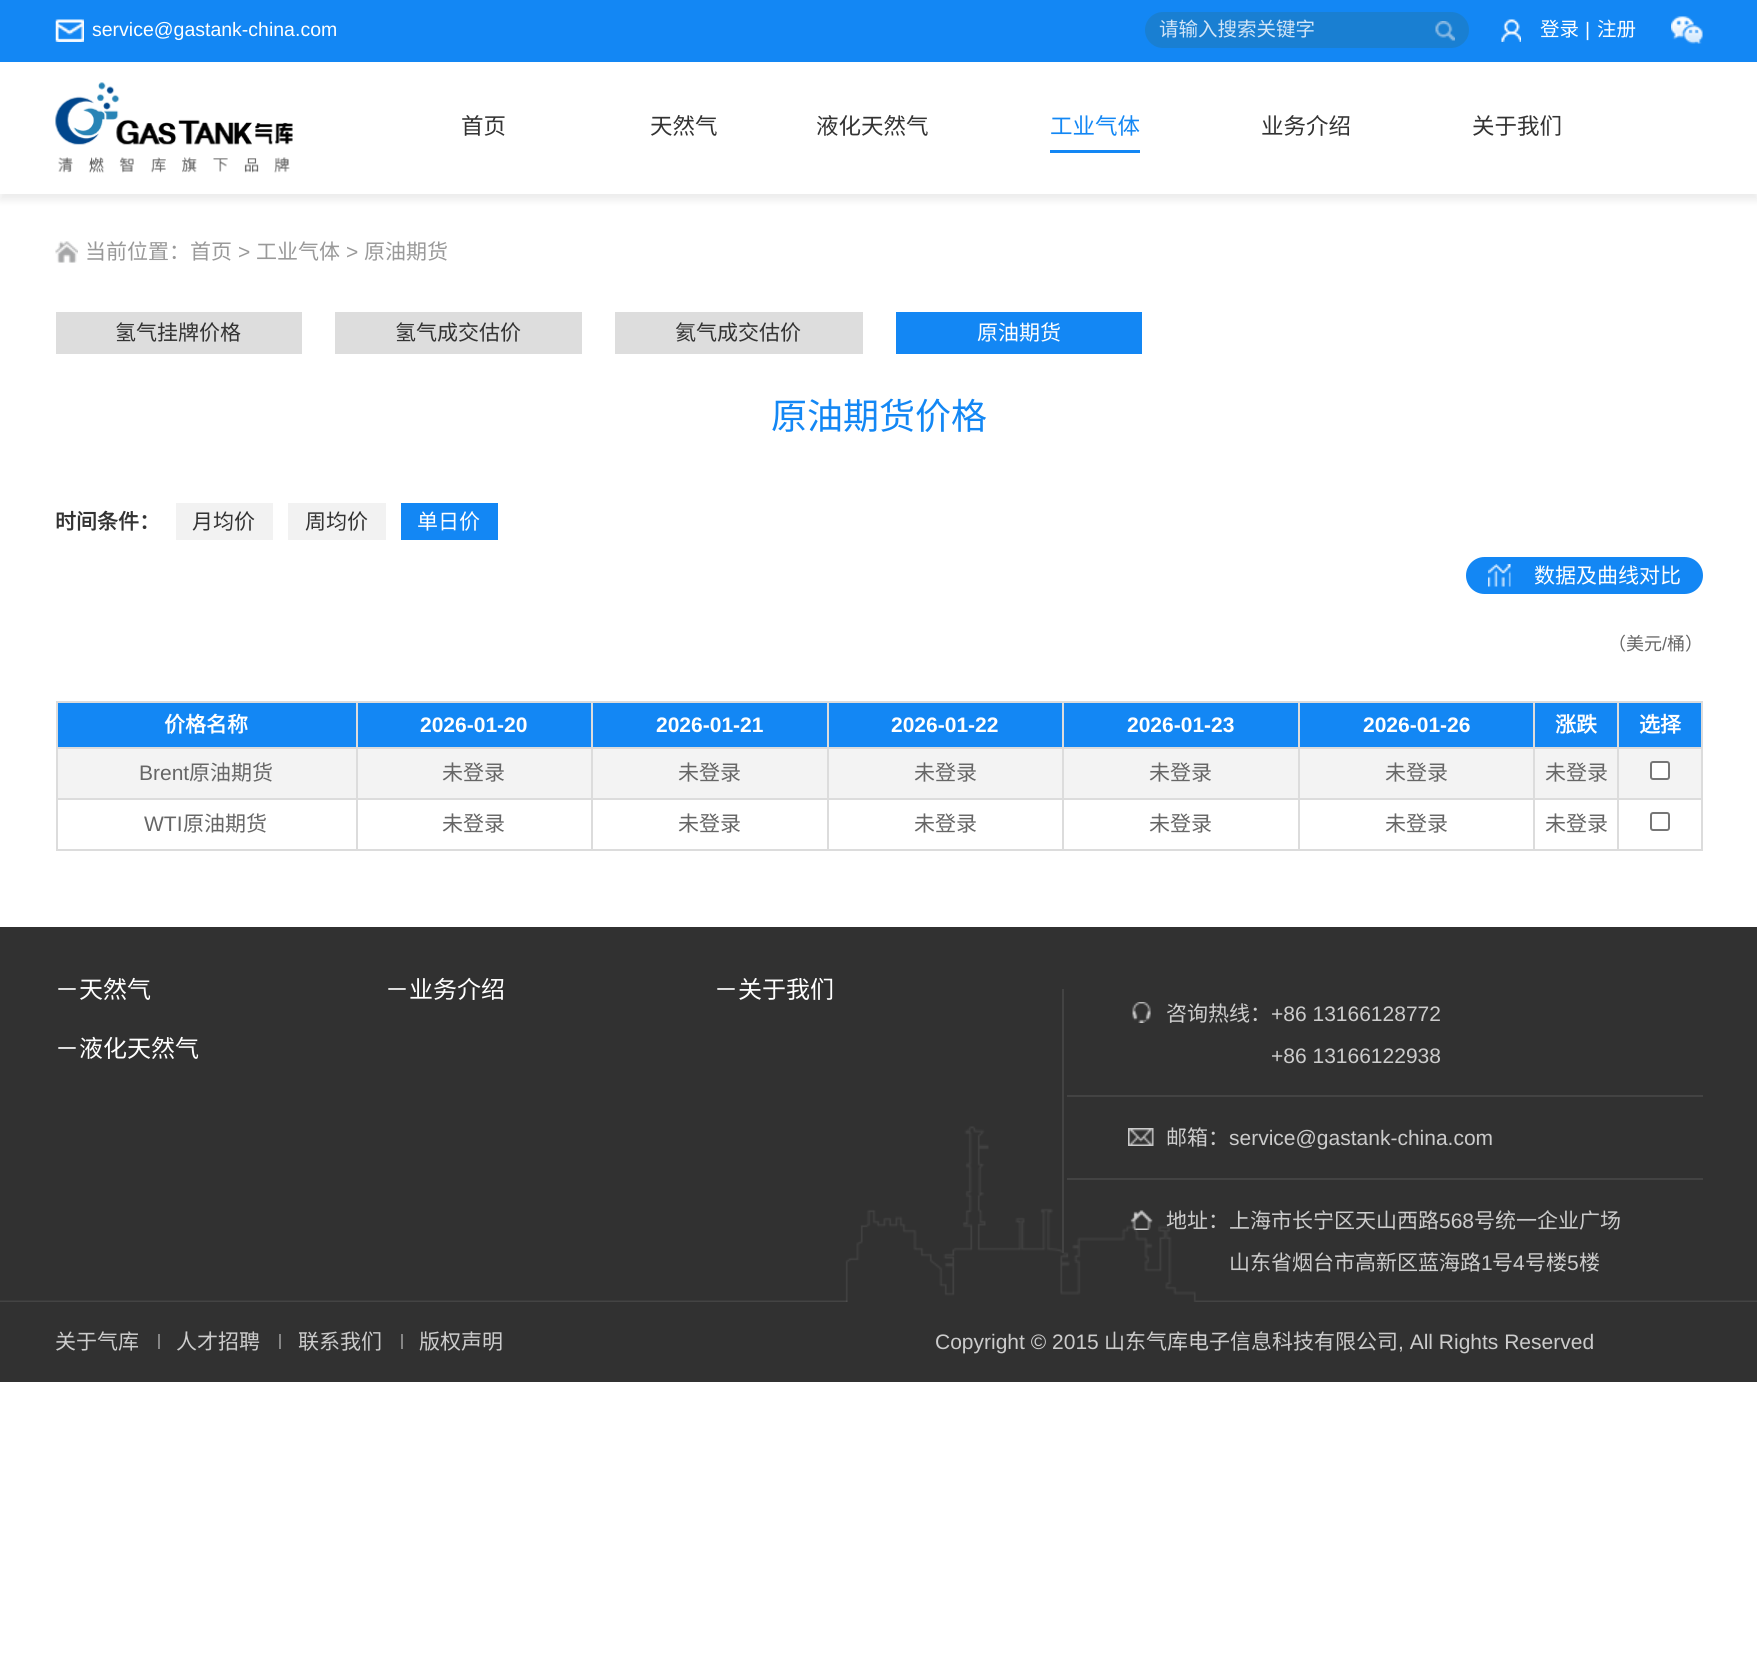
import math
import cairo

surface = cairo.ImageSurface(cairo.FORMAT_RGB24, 1757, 1662)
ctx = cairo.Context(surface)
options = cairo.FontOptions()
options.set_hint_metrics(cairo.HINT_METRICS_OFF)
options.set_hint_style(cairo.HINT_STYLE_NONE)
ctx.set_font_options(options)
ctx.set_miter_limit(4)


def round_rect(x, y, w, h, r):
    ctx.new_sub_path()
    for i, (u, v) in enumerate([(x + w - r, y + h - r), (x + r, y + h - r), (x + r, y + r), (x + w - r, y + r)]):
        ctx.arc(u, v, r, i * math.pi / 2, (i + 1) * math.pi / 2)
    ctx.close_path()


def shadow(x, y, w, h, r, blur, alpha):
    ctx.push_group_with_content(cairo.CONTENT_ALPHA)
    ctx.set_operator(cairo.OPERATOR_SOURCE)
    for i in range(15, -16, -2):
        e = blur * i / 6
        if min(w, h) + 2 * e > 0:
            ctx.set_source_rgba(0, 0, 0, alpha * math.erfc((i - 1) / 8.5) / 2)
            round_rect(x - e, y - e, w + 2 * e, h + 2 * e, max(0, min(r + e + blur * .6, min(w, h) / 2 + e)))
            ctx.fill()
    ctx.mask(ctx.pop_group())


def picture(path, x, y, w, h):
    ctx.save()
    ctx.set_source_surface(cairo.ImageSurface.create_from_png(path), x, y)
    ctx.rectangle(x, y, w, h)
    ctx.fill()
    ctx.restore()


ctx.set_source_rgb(1, 1, 1)
ctx.paint()
ctx.set_source_rgb(0, 0, 0)
shadow(0, 68, 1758, 132, 0, 4, 0.08)
ctx.set_source_rgb(0.078, 0.529, 0.957)
ctx.rectangle(0, 0, 1757, 62)
ctx.fill()
picture("img1.png", 55, 19, 29, 23)
ctx.select_font_face("Liberation Sans")
ctx.set_font_size(19.5)
ctx.set_source_rgb(1, 1, 1)
ctx.move_to(92, 36)
ctx.show_text("service@gastank-china.com")
ctx.set_source_rgb(0.098, 0.498, 0.824)
round_rect(1145, 12, 324, 36, 18)
ctx.fill()
ctx.select_font_face("Noto Sans CJK SC")
ctx.set_source_rgb(0.82, 0.898, 0.965)
ctx.move_to(1159, 36)
ctx.show_text("请输入搜索关键字")
picture("img2.png", 1435, 21, 20, 20)
picture("img3.png", 1501, 19, 20, 23)
ctx.set_source_rgb(1, 1, 1)
ctx.move_to(1540, 36)
ctx.show_text("登录")
ctx.select_font_face("Liberation Sans")
ctx.move_to(1585, 36)
ctx.show_text("|")
ctx.select_font_face("Noto Sans CJK SC")
ctx.move_to(1597, 36)
ctx.show_text("注册")
picture("img4.png", 1671, 16, 32, 28)
ctx.rectangle(0, 63, 1757, 131)
ctx.fill()
picture("img5.png", 55, 82, 238, 91)
ctx.set_font_size(22.5)
ctx.set_source_rgb(0.2, 0.2, 0.2)
ctx.move_to(461, 134)
ctx.show_text("首页")
ctx.move_to(650, 134)
ctx.show_text("天然气")
ctx.move_to(816, 134)
ctx.show_text("液化天然气")
ctx.set_source_rgb(0.078, 0.529, 0.957)
ctx.move_to(1050, 134)
ctx.show_text("工业气体")
ctx.rectangle(1050, 150, 90, 3)
ctx.fill()
ctx.set_source_rgb(0.2, 0.2, 0.2)
ctx.move_to(1261, 134)
ctx.show_text("业务介绍")
ctx.move_to(1472, 134)
ctx.show_text("关于我们")
picture("img6.png", 55, 241, 23, 22)
ctx.set_font_size(21)
ctx.set_source_rgb(0.6, 0.6, 0.6)
ctx.move_to(85, 259)
ctx.show_text("当前位置：首页")
ctx.select_font_face("Liberation Sans")
ctx.move_to(238, 259)
ctx.show_text(">")
ctx.select_font_face("Noto Sans CJK SC")
ctx.move_to(256, 259)
ctx.show_text("工业气体")
ctx.select_font_face("Liberation Sans")
ctx.move_to(346, 259)
ctx.show_text(">")
ctx.select_font_face("Noto Sans CJK SC")
ctx.move_to(364, 259)
ctx.show_text("原油期货")
ctx.set_source_rgb(0.867, 0.867, 0.867)
ctx.rectangle(56, 312, 246, 42)
ctx.fill()
ctx.set_source_rgb(0.2, 0.2, 0.2)
ctx.move_to(115, 340)
ctx.show_text("氢气挂牌价格")
ctx.set_source_rgb(0.867, 0.867, 0.867)
ctx.rectangle(335, 312, 247, 42)
ctx.fill()
ctx.set_source_rgb(0.2, 0.2, 0.2)
ctx.move_to(395, 340)
ctx.show_text("氢气成交估价")
ctx.set_source_rgb(0.867, 0.867, 0.867)
ctx.rectangle(615, 312, 248, 42)
ctx.fill()
ctx.set_source_rgb(0.2, 0.2, 0.2)
ctx.move_to(675, 340)
ctx.show_text("氦气成交估价")
ctx.set_source_rgb(0.078, 0.529, 0.957)
ctx.rectangle(896, 312, 246, 42)
ctx.fill()
ctx.set_source_rgb(1, 1, 1)
ctx.move_to(977, 340)
ctx.show_text("原油期货")
ctx.set_font_size(36)
ctx.set_source_rgb(0.078, 0.529, 0.957)
ctx.move_to(771, 429)
ctx.show_text("原油期货价格")
ctx.select_font_face("Noto Sans CJK SC", cairo.FONT_SLANT_NORMAL, cairo.FONT_WEIGHT_BOLD)
ctx.set_font_size(21)
ctx.set_source_rgb(0.2, 0.2, 0.2)
ctx.move_to(55, 529)
ctx.show_text("时间条件：")
ctx.set_source_rgb(0.949, 0.949, 0.949)
ctx.rectangle(176, 503, 97, 37)
ctx.fill()
ctx.select_font_face("Noto Sans CJK SC")
ctx.set_source_rgb(0.2, 0.2, 0.2)
ctx.move_to(192, 529)
ctx.show_text("月均价")
ctx.set_source_rgb(0.949, 0.949, 0.949)
ctx.rectangle(288, 503, 98, 37)
ctx.fill()
ctx.set_source_rgb(0.2, 0.2, 0.2)
ctx.move_to(305, 529)
ctx.show_text("周均价")
ctx.set_source_rgb(0.078, 0.529, 0.957)
ctx.rectangle(401, 503, 97, 37)
ctx.fill()
ctx.set_source_rgb(1, 1, 1)
ctx.move_to(417, 529)
ctx.show_text("单日价")
ctx.set_source_rgb(0.078, 0.529, 0.957)
round_rect(1466, 557, 237, 37, 18.5)
ctx.fill()
picture("img7.png", 1488, 564, 23, 23)
ctx.set_source_rgb(1, 1, 1)
ctx.move_to(1534, 583)
ctx.show_text("数据及曲线对比")
ctx.set_font_size(18)
ctx.set_source_rgb(0.4, 0.4, 0.4)
ctx.move_to(1608, 650)
ctx.show_text("（美元")
ctx.select_font_face("Liberation Sans")
ctx.move_to(1662, 650)
ctx.show_text("/")
ctx.select_font_face("Noto Sans CJK SC")
ctx.move_to(1667, 650)
ctx.show_text("桶）")
ctx.set_source_rgb(0.863, 0.863, 0.863)
ctx.rectangle(56, 701, 1647, 2)
ctx.fill()
ctx.rectangle(56, 701, 2, 150)
ctx.fill()
ctx.set_source_rgb(0.078, 0.529, 0.957)
ctx.rectangle(58, 703, 298, 44)
ctx.fill()
ctx.select_font_face("Noto Sans CJK SC", cairo.FONT_SLANT_NORMAL, cairo.FONT_WEIGHT_BOLD)
ctx.set_font_size(21)
ctx.set_source_rgb(1, 1, 1)
ctx.move_to(164, 732)
ctx.show_text("价格名称")
ctx.set_source_rgb(0.078, 0.529, 0.957)
ctx.rectangle(358, 703, 233, 44)
ctx.fill()
ctx.set_source_rgb(0.863, 0.863, 0.863)
ctx.rectangle(1617, 747, 86, 2)
ctx.fill()
ctx.set_source_rgb(0.953, 0.953, 0.953)
ctx.rectangle(58, 749, 1643, 49)
ctx.fill()
ctx.set_source_rgb(0.863, 0.863, 0.863)
ctx.rectangle(1617, 798, 86, 2)
ctx.fill()
ctx.rectangle(1701, 798, 2, 53)
ctx.fill()
ctx.rectangle(1617, 849, 86, 2)
ctx.fill()
ctx.rectangle(1617, 798, 2, 53)
ctx.fill()
ctx.rectangle(1533, 798, 86, 2)
ctx.fill()
ctx.rectangle(1617, 747, 2, 53)
ctx.fill()
ctx.rectangle(1533, 747, 86, 2)
ctx.fill()
ctx.rectangle(1533, 849, 86, 2)
ctx.fill()
ctx.rectangle(1533, 798, 2, 53)
ctx.fill()
ctx.rectangle(1298, 798, 237, 2)
ctx.fill()
ctx.rectangle(1533, 747, 2, 53)
ctx.fill()
ctx.rectangle(1298, 747, 237, 2)
ctx.fill()
ctx.rectangle(1298, 849, 237, 2)
ctx.fill()
ctx.rectangle(1298, 798, 2, 53)
ctx.fill()
ctx.rectangle(1062, 798, 237, 2)
ctx.fill()
ctx.rectangle(1298, 747, 2, 53)
ctx.fill()
ctx.rectangle(1062, 747, 237, 2)
ctx.fill()
ctx.rectangle(1062, 849, 237, 2)
ctx.fill()
ctx.rectangle(1062, 798, 2, 53)
ctx.fill()
ctx.rectangle(827, 798, 237, 2)
ctx.fill()
ctx.rectangle(1062, 747, 2, 53)
ctx.fill()
ctx.rectangle(827, 747, 237, 2)
ctx.fill()
ctx.rectangle(827, 849, 237, 2)
ctx.fill()
ctx.rectangle(827, 798, 2, 53)
ctx.fill()
ctx.rectangle(591, 798, 237, 2)
ctx.fill()
ctx.rectangle(827, 747, 2, 53)
ctx.fill()
ctx.rectangle(591, 747, 237, 2)
ctx.fill()
ctx.rectangle(591, 849, 237, 2)
ctx.fill()
ctx.rectangle(591, 798, 2, 53)
ctx.fill()
ctx.rectangle(356, 798, 237, 2)
ctx.fill()
ctx.rectangle(591, 747, 2, 53)
ctx.fill()
ctx.rectangle(356, 747, 237, 2)
ctx.fill()
ctx.rectangle(356, 849, 237, 2)
ctx.fill()
ctx.rectangle(356, 798, 2, 53)
ctx.fill()
ctx.rectangle(56, 798, 301, 2)
ctx.fill()
ctx.rectangle(356, 747, 2, 53)
ctx.fill()
ctx.rectangle(56, 747, 301, 2)
ctx.fill()
ctx.rectangle(356, 701, 2, 48)
ctx.fill()
ctx.select_font_face("Liberation Sans", cairo.FONT_SLANT_NORMAL, cairo.FONT_WEIGHT_BOLD)
ctx.set_source_rgb(1, 1, 1)
ctx.move_to(420, 732)
ctx.show_text("2026-01-20")
ctx.set_source_rgb(0.078, 0.529, 0.957)
ctx.rectangle(593, 703, 234, 44)
ctx.fill()
ctx.set_source_rgb(0.863, 0.863, 0.863)
ctx.rectangle(591, 701, 2, 48)
ctx.fill()
ctx.set_source_rgb(1, 1, 1)
ctx.move_to(656, 732)
ctx.show_text("2026-01-21")
ctx.set_source_rgb(0.078, 0.529, 0.957)
ctx.rectangle(829, 703, 233, 44)
ctx.fill()
ctx.set_source_rgb(0.863, 0.863, 0.863)
ctx.rectangle(827, 701, 2, 48)
ctx.fill()
ctx.set_source_rgb(1, 1, 1)
ctx.move_to(891, 732)
ctx.show_text("2026-01-22")
ctx.set_source_rgb(0.078, 0.529, 0.957)
ctx.rectangle(1064, 703, 234, 44)
ctx.fill()
ctx.set_source_rgb(0.863, 0.863, 0.863)
ctx.rectangle(1062, 701, 2, 48)
ctx.fill()
ctx.set_source_rgb(1, 1, 1)
ctx.move_to(1127, 732)
ctx.show_text("2026-01-23")
ctx.set_source_rgb(0.078, 0.529, 0.957)
ctx.rectangle(1300, 703, 233, 44)
ctx.fill()
ctx.set_source_rgb(0.863, 0.863, 0.863)
ctx.rectangle(1298, 701, 2, 48)
ctx.fill()
ctx.set_source_rgb(1, 1, 1)
ctx.move_to(1363, 732)
ctx.show_text("2026-01-26")
ctx.set_source_rgb(0.078, 0.529, 0.957)
ctx.rectangle(1535, 703, 82, 44)
ctx.fill()
ctx.set_source_rgb(0.863, 0.863, 0.863)
ctx.rectangle(1533, 701, 2, 48)
ctx.fill()
ctx.select_font_face("Noto Sans CJK SC", cairo.FONT_SLANT_NORMAL, cairo.FONT_WEIGHT_BOLD)
ctx.set_source_rgb(1, 1, 1)
ctx.move_to(1555, 732)
ctx.show_text("涨跌")
ctx.set_source_rgb(0.078, 0.529, 0.957)
ctx.rectangle(1619, 703, 82, 44)
ctx.fill()
ctx.set_source_rgb(0.863, 0.863, 0.863)
ctx.rectangle(1617, 701, 2, 48)
ctx.fill()
ctx.set_source_rgb(1, 1, 1)
ctx.move_to(1639, 732)
ctx.show_text("选择")
ctx.select_font_face("Liberation Sans")
ctx.set_source_rgb(0.4, 0.4, 0.4)
ctx.move_to(139, 780)
ctx.show_text("Brent")
ctx.select_font_face("Noto Sans CJK SC")
ctx.move_to(189, 780)
ctx.show_text("原油期货")
ctx.move_to(442, 780)
ctx.show_text("未登录")
ctx.move_to(678, 780)
ctx.show_text("未登录")
ctx.move_to(914, 780)
ctx.show_text("未登录")
ctx.move_to(1149, 780)
ctx.show_text("未登录")
ctx.move_to(1385, 780)
ctx.show_text("未登录")
ctx.move_to(1545, 780)
ctx.show_text("未登录")
ctx.set_source_rgb(0.863, 0.863, 0.863)
ctx.rectangle(1701, 701, 2, 99)
ctx.fill()
ctx.set_source_rgb(1, 1, 1)
round_rect(1651, 762, 18, 17, 2)
ctx.fill_preserve()
ctx.set_source_rgb(0.463, 0.463, 0.463)
ctx.stroke()
ctx.set_source_rgb(0.863, 0.863, 0.863)
ctx.rectangle(56, 849, 301, 2)
ctx.fill()
ctx.select_font_face("Liberation Sans")
ctx.set_source_rgb(0.4, 0.4, 0.4)
ctx.move_to(144, 831)
ctx.show_text("WTI")
ctx.select_font_face("Noto Sans CJK SC")
ctx.move_to(183, 831)
ctx.show_text("原油期货")
ctx.move_to(442, 831)
ctx.show_text("未登录")
ctx.move_to(678, 831)
ctx.show_text("未登录")
ctx.move_to(914, 831)
ctx.show_text("未登录")
ctx.move_to(1149, 831)
ctx.show_text("未登录")
ctx.move_to(1385, 831)
ctx.show_text("未登录")
ctx.move_to(1545, 831)
ctx.show_text("未登录")
round_rect(1651, 813, 18, 17, 2)
ctx.set_source_rgb(0.463, 0.463, 0.463)
ctx.stroke()
ctx.set_source_rgb(0.192, 0.192, 0.192)
ctx.rectangle(0, 927, 1757, 455)
ctx.fill()
picture("img8.png", 0, 1126, 1757, 176)
ctx.set_font_size(24)
ctx.set_source_rgb(1, 1, 1)
ctx.move_to(55, 998)
ctx.show_text("－天然气")
ctx.move_to(55, 1057)
ctx.show_text("－液化天然气")
ctx.move_to(385, 998)
ctx.show_text("－业务介绍")
ctx.move_to(714, 998)
ctx.show_text("－关于我们")
ctx.set_source_rgb(0.263, 0.263, 0.263)
ctx.rectangle(1062, 989, 2, 264)
ctx.fill()
ctx.rectangle(1067, 1095, 636, 2)
ctx.fill()
picture("img9.png", 1132, 1002, 19, 21)
ctx.set_font_size(21)
ctx.set_source_rgb(0.8, 0.8, 0.8)
ctx.move_to(1166, 1021)
ctx.show_text("咨询热线：")
ctx.select_font_face("Liberation Sans")
ctx.move_to(1271, 1021)
ctx.show_text("+86 13166128772")
ctx.move_to(1271, 1063)
ctx.show_text("+86 13166122938")
ctx.set_source_rgb(0.263, 0.263, 0.263)
ctx.rectangle(1067, 1178, 636, 2)
ctx.fill()
picture("img10.png", 1128, 1128, 26, 18)
ctx.select_font_face("Noto Sans CJK SC")
ctx.set_source_rgb(0.8, 0.8, 0.8)
ctx.move_to(1166, 1145)
ctx.show_text("邮箱：")
ctx.select_font_face("Liberation Sans")
ctx.move_to(1229, 1145)
ctx.show_text("service@gastank-china.com")
picture("img11.png", 1130, 1210, 23, 20)
ctx.select_font_face("Noto Sans CJK SC")
ctx.move_to(1166, 1228)
ctx.show_text("地址：上海市长宁区天山西路")
ctx.select_font_face("Liberation Sans")
ctx.move_to(1439, 1228)
ctx.show_text("568")
ctx.select_font_face("Noto Sans CJK SC")
ctx.move_to(1474, 1228)
ctx.show_text("号统一企业广场")
ctx.move_to(1229, 1270)
ctx.show_text("山东省烟台市高新区蓝海路")
ctx.select_font_face("Liberation Sans")
ctx.move_to(1481, 1270)
ctx.show_text("1")
ctx.select_font_face("Noto Sans CJK SC")
ctx.move_to(1492, 1270)
ctx.show_text("号")
ctx.select_font_face("Liberation Sans")
ctx.move_to(1513, 1270)
ctx.show_text("4")
ctx.select_font_face("Noto Sans CJK SC")
ctx.move_to(1525, 1270)
ctx.show_text("号楼")
ctx.select_font_face("Liberation Sans")
ctx.move_to(1567, 1270)
ctx.show_text("5")
ctx.select_font_face("Noto Sans CJK SC")
ctx.move_to(1579, 1270)
ctx.show_text("楼")
ctx.move_to(55, 1349)
ctx.show_text("关于气库")
ctx.set_source_rgb(0.522, 0.522, 0.522)
ctx.rectangle(158, 1334, 2, 15)
ctx.fill()
ctx.set_source_rgb(0.8, 0.8, 0.8)
ctx.move_to(176, 1349)
ctx.show_text("人才招聘")
ctx.set_source_rgb(0.522, 0.522, 0.522)
ctx.rectangle(279, 1334, 2, 15)
ctx.fill()
ctx.set_source_rgb(0.8, 0.8, 0.8)
ctx.move_to(298, 1349)
ctx.show_text("联系我们")
ctx.set_source_rgb(0.522, 0.522, 0.522)
ctx.rectangle(401, 1334, 2, 15)
ctx.fill()
ctx.set_source_rgb(0.8, 0.8, 0.8)
ctx.move_to(419, 1349)
ctx.show_text("版权声明")
ctx.select_font_face("Liberation Sans")
ctx.move_to(935, 1349)
ctx.show_text("Copyright © 2015")
ctx.select_font_face("Noto Sans CJK SC")
ctx.move_to(1104, 1349)
ctx.show_text("山东气库电子信息科技有限公司")
ctx.select_font_face("Liberation Sans")
ctx.move_to(1398, 1349)
ctx.show_text(", All Rights Reserved")
surface.write_to_png("page.png")
